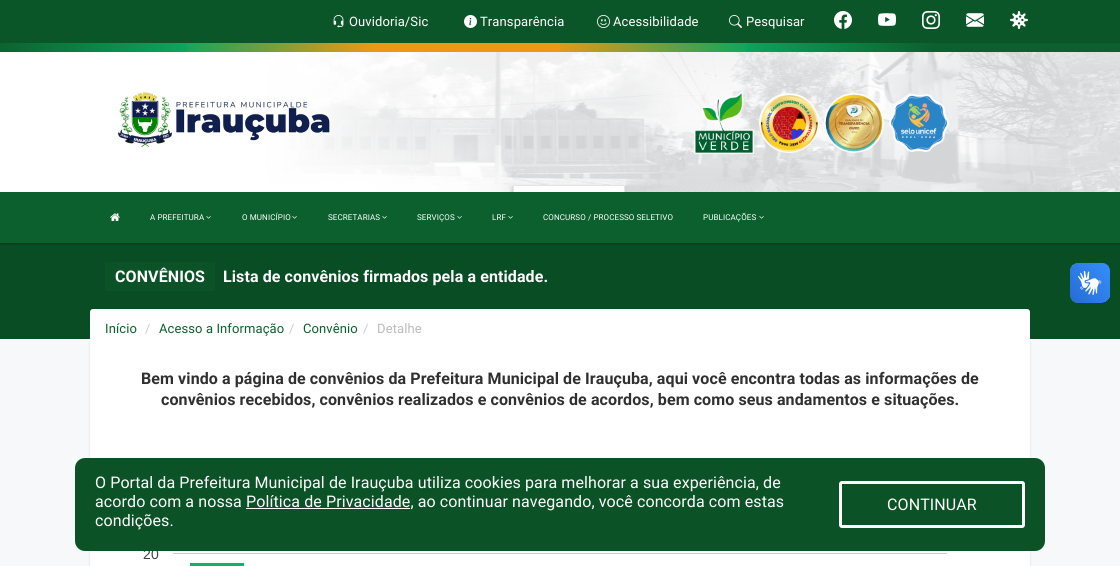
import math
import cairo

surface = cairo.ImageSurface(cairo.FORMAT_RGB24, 1120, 566)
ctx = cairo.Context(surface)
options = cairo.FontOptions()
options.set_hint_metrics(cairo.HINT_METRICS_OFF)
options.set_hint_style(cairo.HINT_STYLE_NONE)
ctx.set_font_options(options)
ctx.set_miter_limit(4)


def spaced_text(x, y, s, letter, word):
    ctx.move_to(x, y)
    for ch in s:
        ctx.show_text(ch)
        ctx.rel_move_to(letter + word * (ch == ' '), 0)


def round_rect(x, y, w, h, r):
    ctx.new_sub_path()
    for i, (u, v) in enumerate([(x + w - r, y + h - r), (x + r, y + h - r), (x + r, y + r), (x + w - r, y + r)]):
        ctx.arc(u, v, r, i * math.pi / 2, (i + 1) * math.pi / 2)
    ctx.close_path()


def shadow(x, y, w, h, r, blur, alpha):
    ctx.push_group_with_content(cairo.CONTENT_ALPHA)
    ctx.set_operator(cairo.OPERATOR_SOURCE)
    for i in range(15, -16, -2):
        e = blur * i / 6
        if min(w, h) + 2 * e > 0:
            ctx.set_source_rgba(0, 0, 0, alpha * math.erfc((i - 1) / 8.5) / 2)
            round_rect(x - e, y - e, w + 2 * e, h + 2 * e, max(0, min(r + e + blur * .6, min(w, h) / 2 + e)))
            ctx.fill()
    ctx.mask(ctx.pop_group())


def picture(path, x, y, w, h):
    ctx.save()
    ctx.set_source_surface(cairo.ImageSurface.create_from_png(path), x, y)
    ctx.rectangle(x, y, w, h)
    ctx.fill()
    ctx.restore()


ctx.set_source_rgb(0.965, 0.969, 0.973)
ctx.paint()
ctx.set_source_rgb(0.012, 0, 0.278)
shadow(90, 310, 940, 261, 0, 1.5, 0.09)
ctx.set_source_rgb(0.039, 0.302, 0.145)
ctx.rectangle(0, 243, 1120, 96)
ctx.fill()
ctx.set_source_rgb(0, 0, 0)
shadow(0, 1, 1120, 243, 0, 1, 0.3)
picture("img1.png", 0, 52, 1120, 140)
ctx.set_source_rgb(0.043, 0.337, 0.161)
ctx.rectangle(0, 0, 1120, 43)
ctx.fill()
picture("img2.png", 333, 15, 11, 13)
ctx.select_font_face("Roboto")
ctx.set_font_size(13)
ctx.set_source_rgb(1, 1, 1)
spaced_text(349, 26, "Ouvidoria/Sic", 0.1, 0)
picture("img3.png", 464, 15, 13, 13)
spaced_text(480, 26, "Transparência", 0.1, 0)
picture("img4.png", 597, 15, 13, 13)
spaced_text(613, 26, "Acessibilidade", 0.1, 0)
picture("img5.png", 729, 15, 13, 13)
spaced_text(746, 26, "Pesquisar", 0.1, 0)
picture("img6.png", 834, 11, 18, 18)
picture("img7.png", 878, 13, 18, 13)
picture("img8.png", 922, 11, 18, 18)
picture("img9.png", 966, 13, 18, 14)
picture("img10.png", 1010, 11, 18, 18)
picture("img11.png", 0, 43, 187, 9)
picture("img12.png", 187, 43, 186, 9)
ctx.set_source_rgb(0.933, 0.592, 0.086)
ctx.rectangle(373, 43, 187, 9)
ctx.fill()
picture("img13.png", 560, 43, 187, 9)
picture("img14.png", 747, 43, 186, 9)
ctx.set_source_rgb(0.047, 0.376, 0.18)
ctx.rectangle(933, 43, 187, 9)
ctx.fill()
picture("img15.png", 118, 92, 212, 55)
picture("img16.png", 694, 92, 60, 62)
picture("img17.png", 759, 93, 60, 60)
picture("img18.png", 824, 93, 60, 60)
picture("img19.png", 889, 94, 60, 58)
ctx.rectangle(0, 192, 1120, 51)
ctx.fill()
picture("img20.png", 110, 213, 10, 8)
ctx.set_font_size(8)
ctx.set_source_rgb(1, 1, 1)
spaced_text(150, 220, "A PREFEITURA", 0.1, 0)
picture("img21.png", 206, 216, 5, 3)
spaced_text(242, 220, "O MUNICÍPIO", 0.1, 0)
picture("img21.png", 292, 216, 5, 3)
spaced_text(328, 220, "SECRETARIAS", 0.1, 0)
picture("img21.png", 382, 216, 5, 3)
spaced_text(417, 220, "SERVIÇOS", 0.1, 0)
picture("img21.png", 457, 216, 5, 3)
spaced_text(492, 220, "LRF", 0.1, 0)
picture("img21.png", 508, 216, 5, 3)
spaced_text(543, 220, "CONCURSO / PROCESSO SELETIVO", 0.1, 0)
spaced_text(703, 220, "PUBLICAÇÕES", 0.1, 0)
picture("img21.png", 759, 216, 5, 3)
ctx.set_source_rgb(0.043, 0.325, 0.153)
ctx.rectangle(105, 262, 110, 29)
ctx.fill()
ctx.select_font_face("Roboto", cairo.FONT_SLANT_NORMAL, cairo.FONT_WEIGHT_BOLD)
ctx.set_font_size(16)
ctx.set_source_rgb(1, 1, 1)
spaced_text(115, 282, "CONVÊNIOS", 0.1, 0)
spaced_text(223, 282, "Lista de convênios firmados pela a entidade.", 0.1, 0)
picture("img22.png", 1070, 263, 40, 40)
picture("img23.png", 1070, 263, 40, 40)
ctx.rectangle(90, 346, 940, 220)
ctx.fill()
round_rect(90, 309, 940, 40, 3)
ctx.fill()
ctx.select_font_face("Roboto")
ctx.set_font_size(13)
ctx.set_source_rgb(0.047, 0.376, 0.18)
spaced_text(105, 333, "Início", 0.1, 0)
ctx.set_source_rgb(0.8, 0.8, 0.8)
spaced_text(145, 333, "/", 0.1, 0)
ctx.set_source_rgb(0.047, 0.376, 0.18)
spaced_text(159, 333, "Acesso a Informação", 0.1, 0)
ctx.set_source_rgb(0.8, 0.8, 0.8)
spaced_text(289, 333, "/", 0.1, 0)
ctx.set_source_rgb(0.047, 0.376, 0.18)
spaced_text(303, 333, "Convênio", 0.1, 0)
ctx.set_source_rgb(0.8, 0.8, 0.8)
spaced_text(363, 333, "/", 0.1, 0)
ctx.set_source_rgb(0.733, 0.733, 0.733)
spaced_text(377, 333, "Detalhe", 0.1, 0)
ctx.select_font_face("Roboto", cairo.FONT_SLANT_NORMAL, cairo.FONT_WEIGHT_BOLD)
ctx.set_font_size(16)
ctx.set_source_rgb(0.188, 0.188, 0.188)
spaced_text(141, 384, "Bem vindo a página de convênios da Prefeitura Municipal de Irauçuba, aqui você encontra todas as informações de", 0.1, 0)
spaced_text(161, 405, "convênios recebidos, convênios realizados e convênios de acordos, bem como seus andamentos e situações.", 0.1, 0)
ctx.select_font_face("Liberation Sans")
ctx.set_font_size(14)
ctx.set_source_rgb(0.267, 0.267, 0.267)
spaced_text(143, 559, "20", 0.1, 0)
picture("img24.png", 173, 551, 774, 15)
ctx.set_source_rgb(0.043, 0.325, 0.153)
round_rect(75, 458, 970, 93, 10)
ctx.fill()
ctx.select_font_face("Roboto")
ctx.set_font_size(16)
ctx.set_source_rgb(1, 1, 1)
spaced_text(95, 488, "O Portal da Prefeitura Municipal de Irauçuba utiliza cookies para melhorar a sua experiência, de", 0.1, 0)
spaced_text(95, 507, "acordo com a nossa Política de Privacidade, ao continuar navegando, você concorda com estas", 0.1, 0)
ctx.rectangle(246, 508, 164, 1)
ctx.fill()
spaced_text(95, 526, "condições.", 0.1, 0)
round_rect(840.5, 482.5, 183, 44, 1.5)
ctx.set_line_width(3)
ctx.stroke()
spaced_text(887, 510, "CONTINUAR", 0.1, 0)
surface.write_to_png("page.png")
